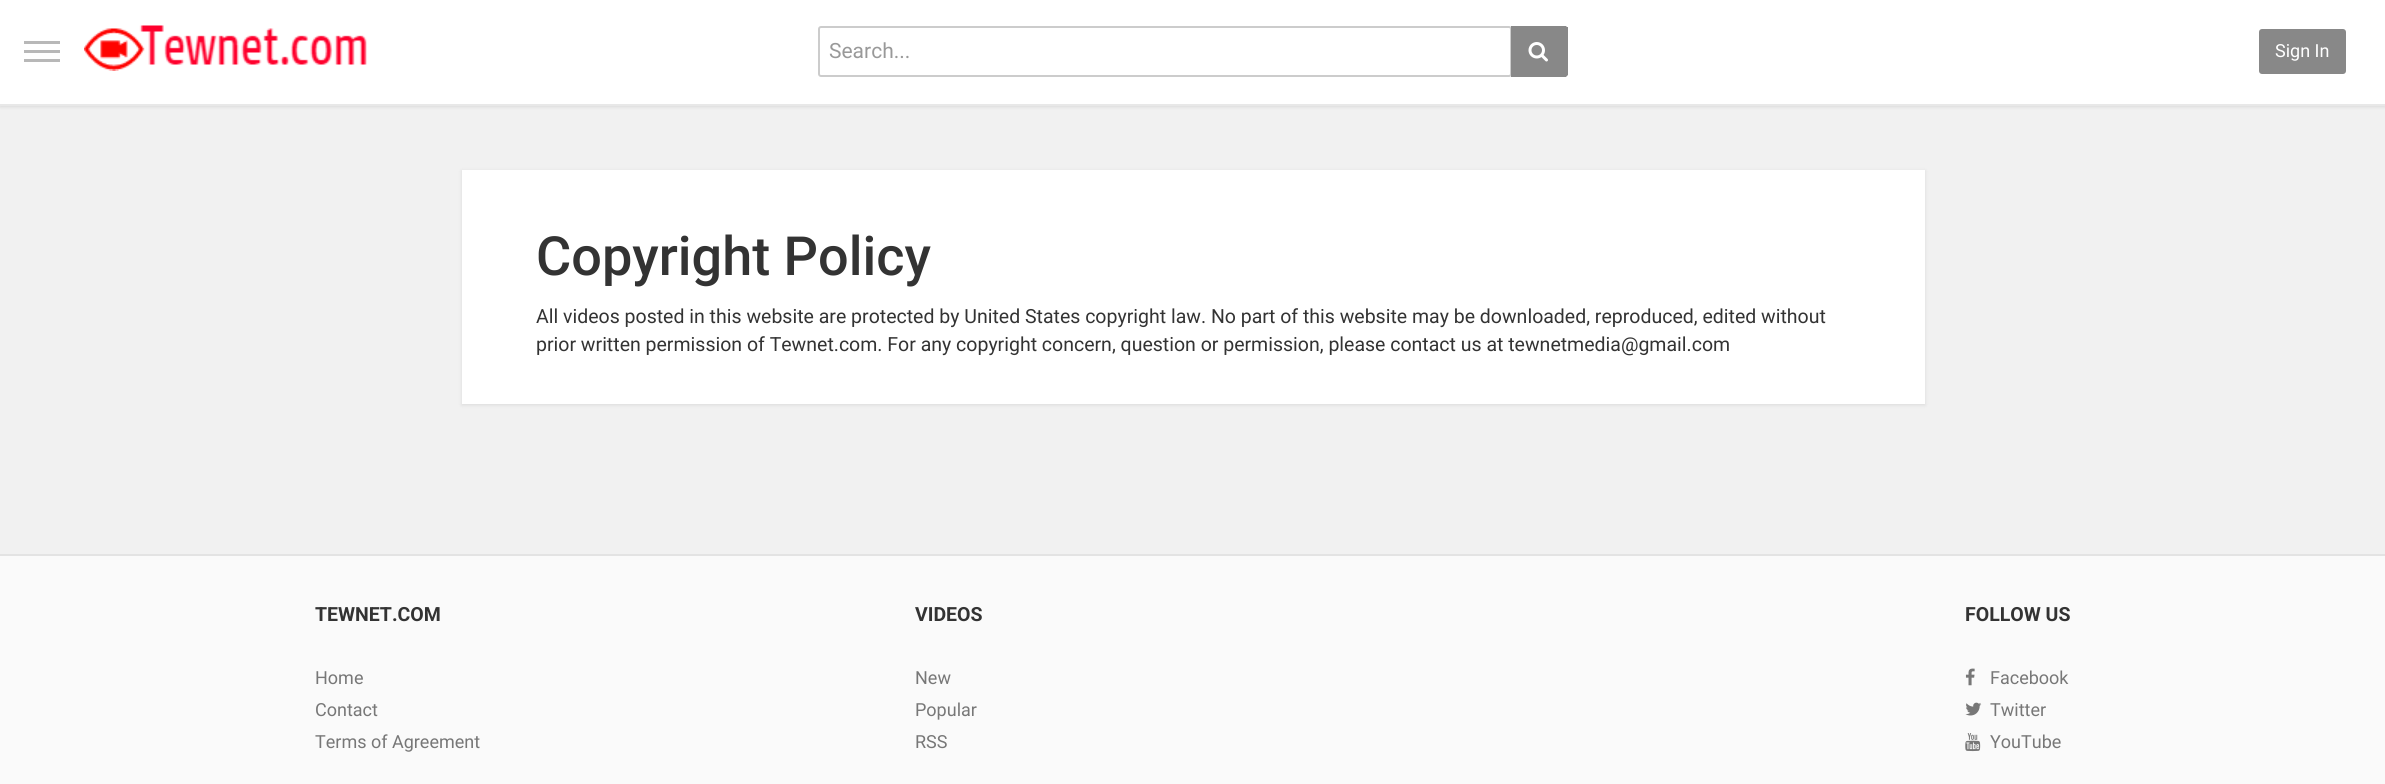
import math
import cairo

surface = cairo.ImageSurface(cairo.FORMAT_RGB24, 2385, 784)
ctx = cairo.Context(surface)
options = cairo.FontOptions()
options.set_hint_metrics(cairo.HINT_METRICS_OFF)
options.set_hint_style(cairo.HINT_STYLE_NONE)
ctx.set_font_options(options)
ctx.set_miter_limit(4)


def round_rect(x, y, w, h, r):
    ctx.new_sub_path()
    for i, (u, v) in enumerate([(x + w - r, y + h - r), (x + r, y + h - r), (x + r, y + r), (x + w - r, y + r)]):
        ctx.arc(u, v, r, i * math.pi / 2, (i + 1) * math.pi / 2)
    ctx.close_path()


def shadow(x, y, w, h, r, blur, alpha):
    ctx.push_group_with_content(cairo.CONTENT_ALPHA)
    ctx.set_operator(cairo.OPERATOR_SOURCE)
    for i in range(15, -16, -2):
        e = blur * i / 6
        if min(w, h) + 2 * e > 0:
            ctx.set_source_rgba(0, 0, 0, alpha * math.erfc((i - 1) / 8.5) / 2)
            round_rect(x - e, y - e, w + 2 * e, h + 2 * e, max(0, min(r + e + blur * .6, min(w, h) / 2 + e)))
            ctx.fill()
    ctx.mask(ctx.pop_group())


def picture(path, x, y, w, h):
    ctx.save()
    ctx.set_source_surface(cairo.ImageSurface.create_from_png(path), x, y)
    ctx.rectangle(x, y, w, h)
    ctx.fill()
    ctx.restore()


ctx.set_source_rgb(0.945, 0.945, 0.945)
ctx.paint()
ctx.set_source_rgb(0, 0, 0)
shadow(0, 2, 2385, 105, 0, 1.5, 0.1)
ctx.set_source_rgb(1, 1, 1)
ctx.rectangle(0, 0, 2385, 104)
ctx.fill()
ctx.set_source_rgb(0.91, 0.91, 0.91)
ctx.rectangle(0, 104, 2385, 2)
ctx.fill()
ctx.set_source_rgb(0.722, 0.722, 0.722)
ctx.rectangle(24, 50, 36, 3)
ctx.fill()
ctx.rectangle(24, 41, 36, 3)
ctx.fill()
ctx.rectangle(24, 59, 36, 3)
ctx.fill()
picture("img1.png", 84, 25, 283, 46)
round_rect(819, 27, 692, 49, 2)
ctx.set_source_rgb(0.8, 0.8, 0.8)
ctx.stroke()
ctx.select_font_face("Roboto")
ctx.set_font_size(21)
ctx.set_source_rgb(0.6, 0.6, 0.6)
ctx.move_to(829, 58)
ctx.show_text("Search...")
ctx.set_source_rgb(0.533, 0.533, 0.533)
ctx.new_path()
ctx.move_to(1511, 26)
ctx.line_to(1565, 26)
ctx.curve_to(1566.5, 26, 1568, 27.5, 1568, 29)
ctx.line_to(1568, 74)
ctx.curve_to(1568, 75.5, 1566.5, 77, 1565, 77)
ctx.line_to(1511, 77)
ctx.close_path()
ctx.fill()
ctx.rectangle(1565, 26, 1, 1)
ctx.fill()
ctx.rectangle(1567, 27, 1, 48)
ctx.fill()
ctx.rectangle(1565, 76, 1, 1)
ctx.fill()
picture("img2.png", 1528, 42, 20, 20)
round_rect(2260, 30, 85, 43, 2)
ctx.fill_preserve()
ctx.stroke()
ctx.set_font_size(18)
ctx.set_source_rgb(1, 1, 1)
ctx.move_to(2275, 57)
ctx.show_text("Sign In")
ctx.rectangle(462, 170, 1463, 234)
ctx.fill()
ctx.save()
ctx.set_fill_rule(cairo.FILL_RULE_EVEN_ODD)
ctx.new_path()
ctx.move_to(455, 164)
ctx.line_to(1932, 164)
ctx.line_to(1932, 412)
ctx.line_to(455, 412)
ctx.close_path()
ctx.move_to(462, 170)
ctx.line_to(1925, 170)
ctx.line_to(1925, 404)
ctx.line_to(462, 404)
ctx.close_path()
ctx.clip()
ctx.set_source_rgb(0, 0, 0)
shadow(462, 171, 1463, 234, 0, 2, 0.1)
ctx.restore()
ctx.select_font_face("Roboto Medium")
ctx.set_font_size(54)
ctx.set_source_rgb(0.2, 0.2, 0.2)
ctx.move_to(536, 275)
ctx.show_text("Copyright Policy")
ctx.select_font_face("Roboto")
ctx.set_font_size(19.5)
ctx.move_to(536, 323)
ctx.show_text("All videos posted in this website are protected by United States copyright law. No part of this website may be downloaded, reproduced, edited without")
ctx.move_to(536, 351)
ctx.show_text("prior written permission of Tewnet.com. For any copyright concern, question or permission, please contact us at tewnetmedia@gmail.com")
ctx.set_source_rgb(0.98, 0.98, 0.98)
ctx.rectangle(0, 556, 2385, 228)
ctx.fill()
ctx.set_source_rgb(0.89, 0.89, 0.89)
ctx.rectangle(0, 554, 2385, 2)
ctx.fill()
ctx.select_font_face("Roboto", cairo.FONT_SLANT_NORMAL, cairo.FONT_WEIGHT_BOLD)
ctx.set_source_rgb(0.2, 0.2, 0.2)
ctx.move_to(315, 621)
ctx.show_text("TEWNET.COM")
ctx.select_font_face("Roboto")
ctx.set_font_size(18)
ctx.set_source_rgb(0.467, 0.467, 0.467)
ctx.move_to(315, 684)
ctx.show_text("Home")
ctx.move_to(315, 716)
ctx.show_text("Contact")
ctx.move_to(315, 748)
ctx.show_text("Terms of Agreement")
ctx.select_font_face("Roboto", cairo.FONT_SLANT_NORMAL, cairo.FONT_WEIGHT_BOLD)
ctx.set_font_size(19.5)
ctx.set_source_rgb(0.2, 0.2, 0.2)
ctx.move_to(915, 621)
ctx.show_text("VIDEOS")
ctx.select_font_face("Roboto")
ctx.set_font_size(18)
ctx.set_source_rgb(0.467, 0.467, 0.467)
ctx.move_to(915, 684)
ctx.show_text("New")
ctx.move_to(915, 716)
ctx.show_text("Popular")
ctx.move_to(915, 748)
ctx.show_text("RSS")
ctx.select_font_face("Roboto", cairo.FONT_SLANT_NORMAL, cairo.FONT_WEIGHT_BOLD)
ctx.set_font_size(19.5)
ctx.set_source_rgb(0.2, 0.2, 0.2)
ctx.move_to(1965, 621)
ctx.show_text("FOLLOW US")
picture("img3.png", 1965, 668, 10, 18)
ctx.select_font_face("Roboto")
ctx.set_font_size(18)
ctx.set_source_rgb(0.467, 0.467, 0.467)
ctx.move_to(1990, 684)
ctx.show_text("Facebook")
picture("img4.png", 1965, 702, 17, 14)
ctx.move_to(1990, 716)
ctx.show_text("Twitter")
picture("img5.png", 1965, 733, 16, 19)
ctx.move_to(1990, 748)
ctx.show_text("YouTube")
surface.write_to_png("page.png")
